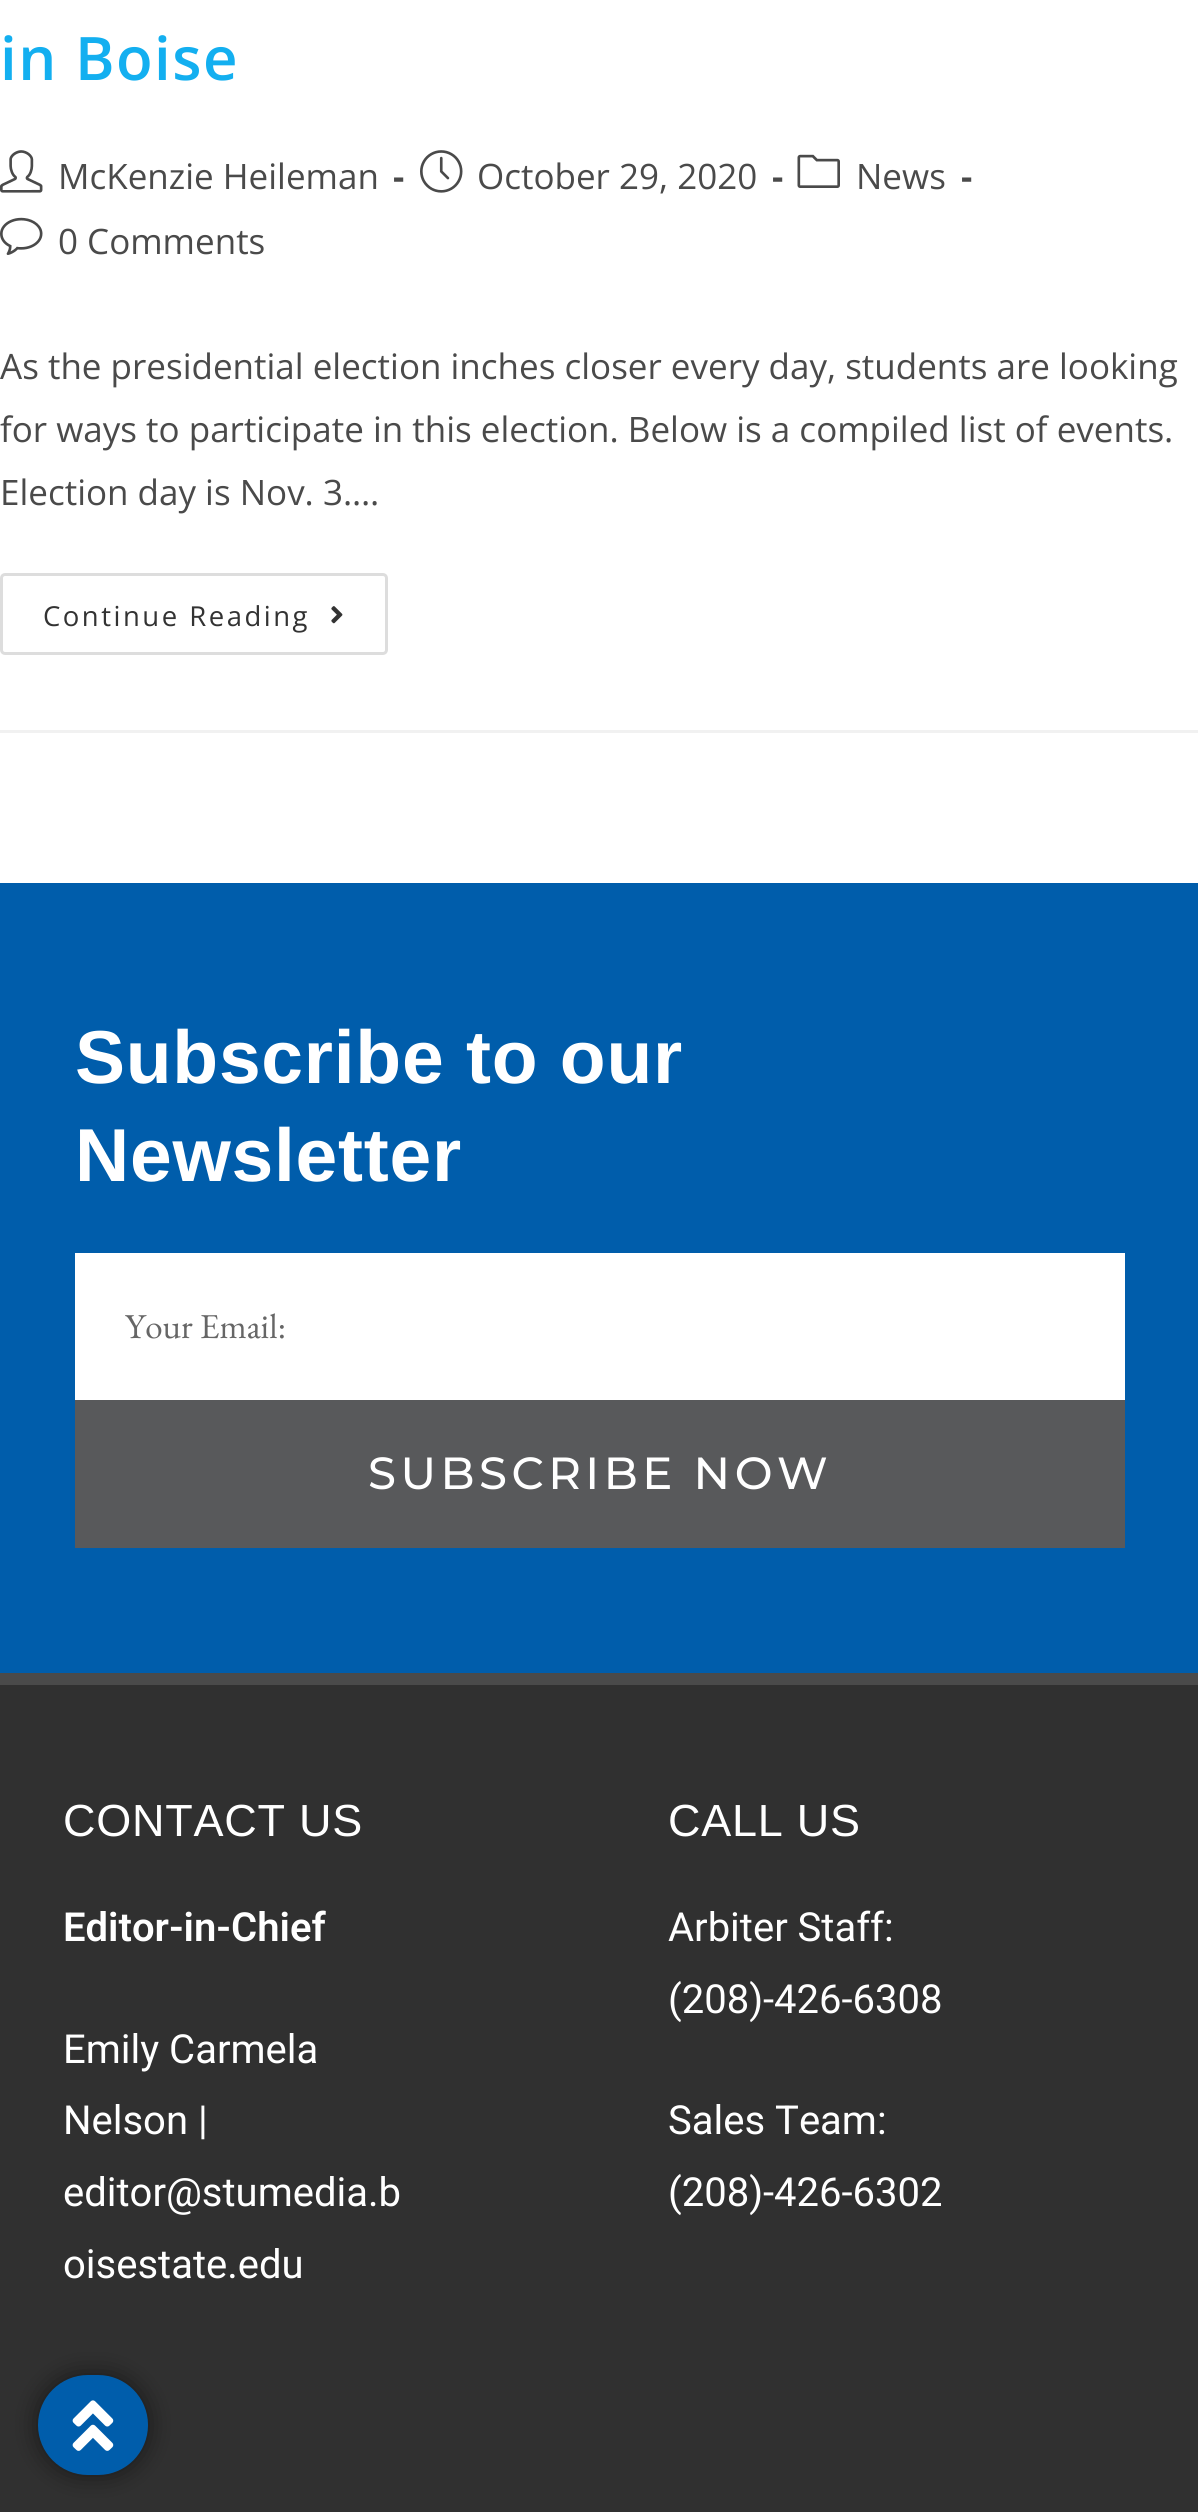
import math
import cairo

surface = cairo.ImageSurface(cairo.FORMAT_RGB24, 1198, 2512)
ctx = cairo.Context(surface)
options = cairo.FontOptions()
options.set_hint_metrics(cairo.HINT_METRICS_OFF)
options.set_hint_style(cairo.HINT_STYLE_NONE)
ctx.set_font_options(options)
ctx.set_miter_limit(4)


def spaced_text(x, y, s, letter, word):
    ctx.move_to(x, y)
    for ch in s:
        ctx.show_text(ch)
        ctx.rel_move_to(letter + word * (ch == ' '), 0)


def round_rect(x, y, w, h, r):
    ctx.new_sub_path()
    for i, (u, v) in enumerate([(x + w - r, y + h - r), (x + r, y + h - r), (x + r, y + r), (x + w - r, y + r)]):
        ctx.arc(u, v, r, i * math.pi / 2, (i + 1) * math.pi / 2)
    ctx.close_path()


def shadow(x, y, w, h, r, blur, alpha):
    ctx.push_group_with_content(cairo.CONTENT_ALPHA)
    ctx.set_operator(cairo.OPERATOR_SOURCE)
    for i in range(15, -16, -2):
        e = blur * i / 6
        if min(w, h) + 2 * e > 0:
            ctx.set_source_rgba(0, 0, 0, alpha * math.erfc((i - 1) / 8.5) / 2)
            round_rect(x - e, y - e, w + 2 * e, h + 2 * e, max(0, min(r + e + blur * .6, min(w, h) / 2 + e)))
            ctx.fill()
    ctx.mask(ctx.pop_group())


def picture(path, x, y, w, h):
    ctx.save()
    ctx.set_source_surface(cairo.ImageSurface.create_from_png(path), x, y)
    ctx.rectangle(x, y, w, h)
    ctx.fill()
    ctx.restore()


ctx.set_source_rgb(1, 1, 1)
ctx.paint()
ctx.set_source_rgb(0.945, 0.945, 0.945)
ctx.rectangle(0, 730, 1198, 3)
ctx.fill()
ctx.select_font_face("Open Sans SemiBold")
ctx.set_font_size(60)
ctx.set_source_rgb(0.075, 0.686, 0.941)
spaced_text(0, 80, "in Boise", 1.5, 0)
picture("img1.png", 0, 150, 43, 43)
ctx.select_font_face("Open Sans")
ctx.set_font_size(35)
ctx.set_source_rgb(0.29, 0.29, 0.29)
ctx.move_to(58, 189)
ctx.show_text("McKenzie Heileman")
ctx.select_font_face("Open Sans", cairo.FONT_SLANT_NORMAL, cairo.FONT_WEIGHT_BOLD)
ctx.move_to(393, 189)
ctx.show_text("-")
picture("img2.png", 420, 150, 43, 43)
ctx.select_font_face("Open Sans")
ctx.move_to(477, 189)
ctx.show_text("October 29, 2020")
ctx.select_font_face("Open Sans", cairo.FONT_SLANT_NORMAL, cairo.FONT_WEIGHT_BOLD)
ctx.move_to(772, 189)
ctx.show_text("-")
picture("img3.png", 797, 154, 43, 34)
ctx.select_font_face("Open Sans")
ctx.move_to(856, 189)
ctx.show_text("News")
ctx.select_font_face("Open Sans", cairo.FONT_SLANT_NORMAL, cairo.FONT_WEIGHT_BOLD)
ctx.move_to(961, 189)
ctx.show_text("-")
picture("img4.png", 0, 217, 43, 38)
ctx.select_font_face("Open Sans")
ctx.move_to(58, 254)
ctx.show_text("0 Comments")
ctx.move_to(0, 379)
ctx.show_text("As the presidential election inches closer every day, students are looking")
ctx.move_to(0, 442)
ctx.show_text("for ways to participate in this election. Below is a compiled list of events.")
ctx.move_to(0, 505)
ctx.show_text("Election day is Nov. 3.…")
round_rect(1.5, 574.5, 385, 79, 3.5)
ctx.set_source_rgb(0.867, 0.867, 0.867)
ctx.set_line_width(3)
ctx.stroke()
ctx.set_font_size(27.5)
ctx.set_source_rgb(0.2, 0.2, 0.2)
spaced_text(43, 626, "Continue Reading", 2.5, 0)
picture("img5.png", 331, 606, 12, 18)
ctx.set_source_rgb(0, 0.365, 0.671)
ctx.rectangle(0, 883, 1198, 790)
ctx.fill()
ctx.select_font_face("Liberation Sans", cairo.FONT_SLANT_NORMAL, cairo.FONT_WEIGHT_BOLD)
ctx.set_font_size(75)
ctx.set_source_rgb(1, 1, 1)
spaced_text(75, 1083, "Subscribe to our", 0.75, 0)
spaced_text(75, 1181, "Newsletter", 0.75, 0)
ctx.rectangle(75, 1253, 1050, 147)
ctx.fill()
ctx.select_font_face("EB Garamond")
ctx.set_font_size(35)
ctx.set_source_rgb(0.4, 0.4, 0.4)
ctx.move_to(125, 1338)
ctx.show_text("Your Email:")
ctx.set_source_rgb(0.345, 0.349, 0.357)
ctx.rectangle(75, 1400, 1050, 148)
ctx.fill()
ctx.select_font_face("Montserrat Medium")
ctx.set_font_size(45)
ctx.set_source_rgb(1, 1, 1)
spaced_text(368, 1489, "SUBSCRIBE NOW", 4.5, 0)
ctx.set_source_rgb(0.188, 0.188, 0.188)
ctx.rectangle(0, 1685, 1198, 827)
ctx.fill()
ctx.set_source_rgb(0.29, 0.29, 0.29)
ctx.rectangle(0, 1673, 1198, 12)
ctx.fill()
ctx.select_font_face("Liberation Sans")
ctx.set_source_rgb(1, 1, 1)
spaced_text(63, 1836, "CONTACT US", 0.75, 0)
ctx.select_font_face("Roboto SemiBold")
ctx.set_font_size(40)
ctx.move_to(63, 1941)
ctx.show_text("Editor-in-Chief")
ctx.select_font_face("Roboto")
ctx.move_to(63, 2063)
ctx.show_text("Emily Carmela")
ctx.move_to(63, 2134)
ctx.show_text("Nelson |")
ctx.move_to(63, 2206)
ctx.show_text("editor@stumedia.b")
ctx.move_to(63, 2278)
ctx.show_text("oisestate.edu")
ctx.select_font_face("Liberation Sans")
ctx.set_font_size(45)
spaced_text(668, 1836, "CALL US", 0.75, 0)
ctx.select_font_face("Roboto")
ctx.set_font_size(40)
ctx.move_to(668, 1941)
ctx.show_text("Arbiter Staff:")
ctx.move_to(668, 2013)
ctx.show_text("(208)-426-6308")
ctx.move_to(668, 2134)
ctx.show_text("Sales Team:")
ctx.move_to(668, 2206)
ctx.show_text("(208)-426-6302")
ctx.set_source_rgb(0, 0, 0)
shadow(38, 2375, 110, 100, 50, 12.5, 0.5)
ctx.set_source_rgb(0, 0.365, 0.671)
round_rect(38, 2375, 110, 100, 50)
ctx.fill()
picture("img6.png", 72, 2400, 42, 51)
surface.write_to_png("page.png")
